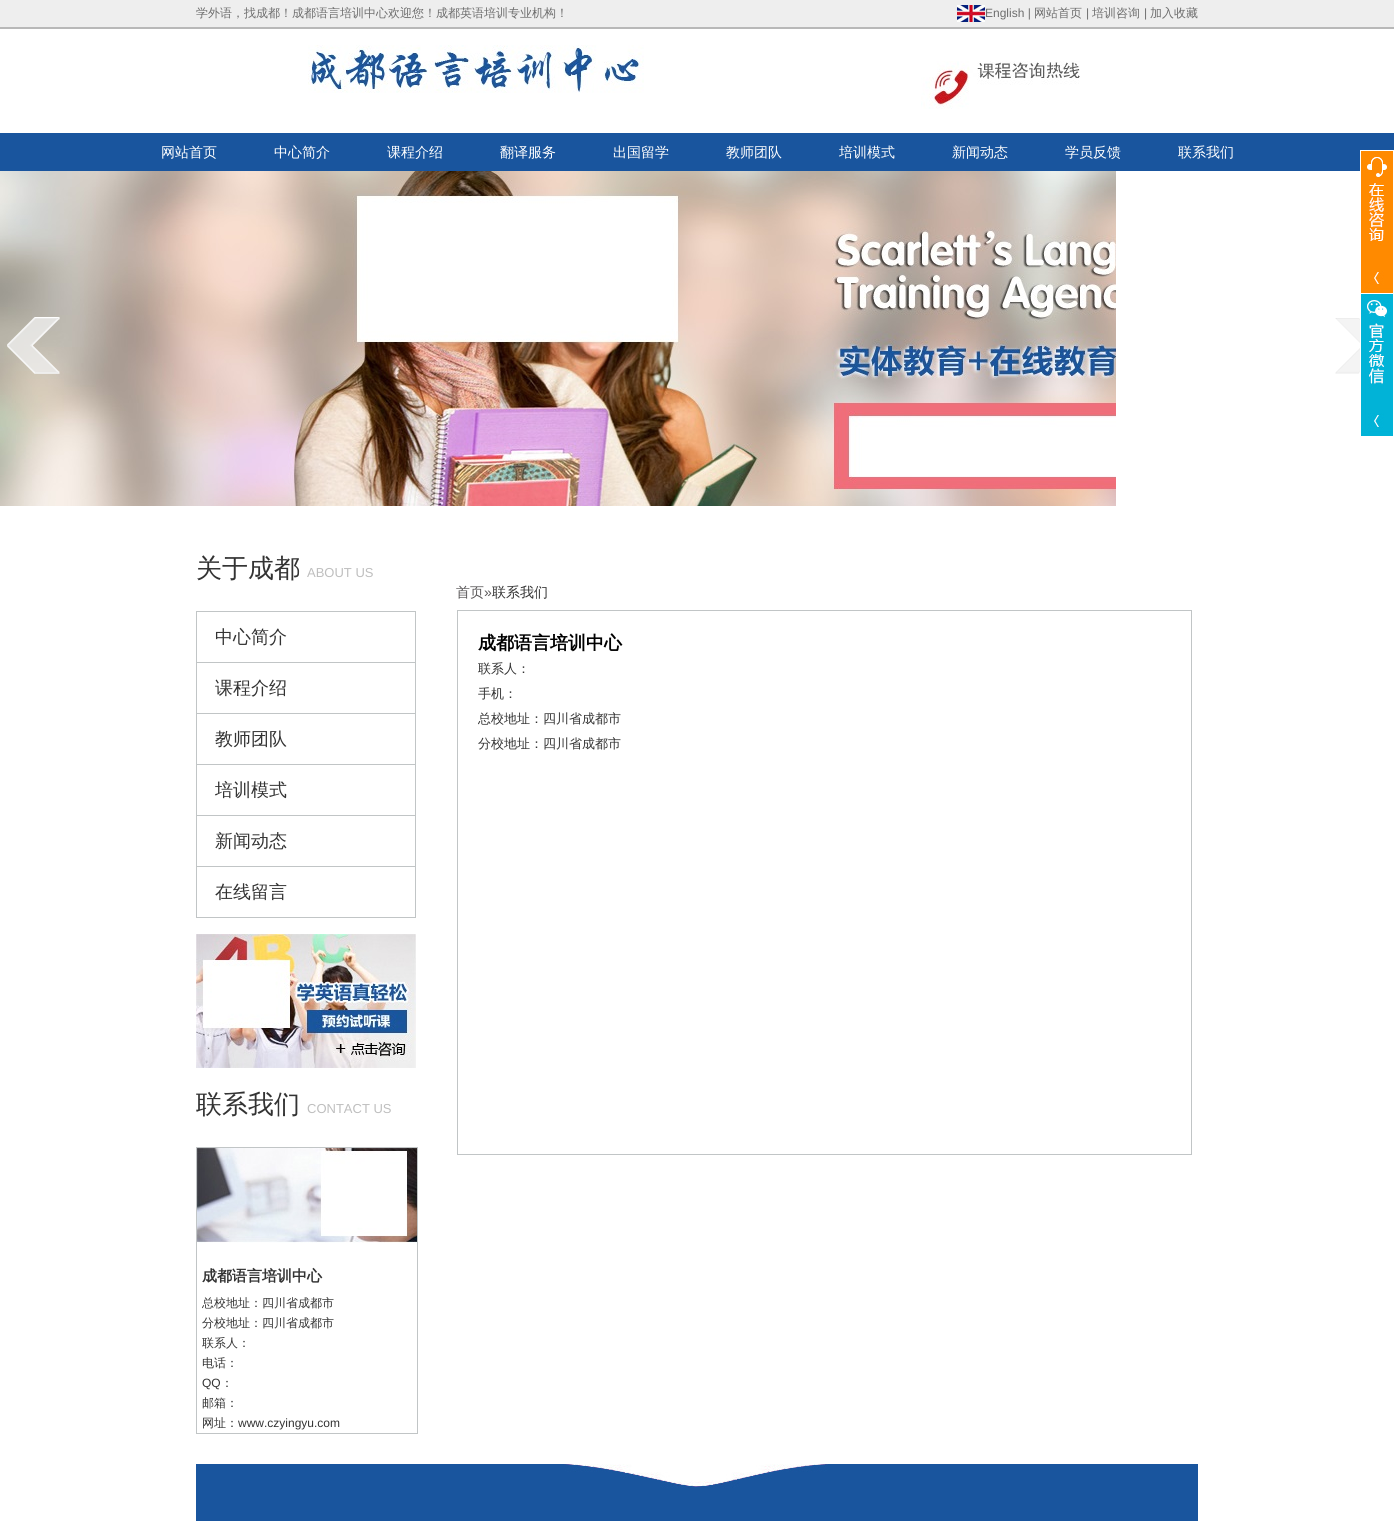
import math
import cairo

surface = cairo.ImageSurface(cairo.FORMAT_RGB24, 1394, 1521)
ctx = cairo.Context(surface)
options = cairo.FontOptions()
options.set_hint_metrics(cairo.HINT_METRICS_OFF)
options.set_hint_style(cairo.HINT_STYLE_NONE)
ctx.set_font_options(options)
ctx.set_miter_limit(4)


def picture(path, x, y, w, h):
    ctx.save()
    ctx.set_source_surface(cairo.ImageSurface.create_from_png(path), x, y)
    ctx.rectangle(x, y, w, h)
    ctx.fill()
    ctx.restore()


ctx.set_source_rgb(1, 1, 1)
ctx.paint()
ctx.set_source_rgb(0.933, 0.933, 0.933)
ctx.rectangle(0, 0, 1394, 27)
ctx.fill()
ctx.set_source_rgb(0.722, 0.722, 0.722)
ctx.rectangle(0, 27, 1394, 2)
ctx.fill()
ctx.select_font_face("WenQuanYi Zen Hei Medium")
ctx.set_font_size(12)
ctx.set_source_rgb(0.427, 0.427, 0.427)
ctx.move_to(196, 17)
ctx.show_text("学外语，找成都！成都语言培训中心欢迎您！成都英语培训专业机构！")
picture("img1.png", 957, 5, 28, 17)
ctx.select_font_face("Liberation Sans")
ctx.move_to(985, 17)
ctx.show_text("English |")
ctx.select_font_face("WenQuanYi Zen Hei Medium")
ctx.move_to(1034, 17)
ctx.show_text("网站首页")
ctx.select_font_face("Liberation Sans")
ctx.move_to(1086, 17)
ctx.show_text("|")
ctx.select_font_face("WenQuanYi Zen Hei Medium")
ctx.move_to(1092, 17)
ctx.show_text("培训咨询")
ctx.select_font_face("Liberation Sans")
ctx.move_to(1144, 17)
ctx.show_text("|")
ctx.select_font_face("WenQuanYi Zen Hei Medium")
ctx.move_to(1150, 17)
ctx.show_text("加入收藏")
picture("img2.png", 308, 45, 336, 48)
picture("img3.png", 921, 61, 159, 48)
ctx.set_source_rgb(0.098, 0.333, 0.62)
ctx.rectangle(0, 133, 1394, 38)
ctx.fill()
ctx.set_font_size(14)
ctx.set_source_rgb(1, 1, 1)
ctx.move_to(161, 157)
ctx.show_text("网站首页")
ctx.move_to(274, 157)
ctx.show_text("中心简介")
ctx.move_to(387, 157)
ctx.show_text("课程介绍")
ctx.move_to(500, 157)
ctx.show_text("翻译服务")
ctx.move_to(613, 157)
ctx.show_text("出国留学")
ctx.move_to(726, 157)
ctx.show_text("教师团队")
ctx.move_to(839, 157)
ctx.show_text("培训模式")
ctx.move_to(952, 157)
ctx.show_text("新闻动态")
ctx.move_to(1065, 157)
ctx.show_text("学员反馈")
ctx.move_to(1178, 157)
ctx.show_text("联系我们")
picture("img4.png", 0, 171, 1116, 335)
picture("img5.png", 7, 317, 53, 57)
picture("img6.png", 1335, 318, 25, 56)
picture("img7.png", 1360, 150, 34, 143)
picture("img8.png", 1360, 294, 33, 142)
ctx.set_font_size(26)
ctx.set_source_rgb(0.2, 0.2, 0.2)
ctx.move_to(196, 577)
ctx.show_text("关于成都")
ctx.select_font_face("Liberation Sans")
ctx.set_font_size(13)
ctx.set_source_rgb(0.745, 0.745, 0.745)
ctx.move_to(307, 577)
ctx.show_text("ABOUT US")
ctx.set_source_rgb(0.757, 0.773, 0.776)
ctx.rectangle(196, 611, 220, 1)
ctx.fill()
ctx.rectangle(415, 611, 1, 307)
ctx.fill()
ctx.rectangle(196, 611, 1, 307)
ctx.fill()
ctx.rectangle(197, 662, 218, 1)
ctx.fill()
ctx.select_font_face("WenQuanYi Zen Hei Medium")
ctx.set_font_size(18)
ctx.set_source_rgb(0.2, 0.2, 0.2)
ctx.move_to(215, 643)
ctx.show_text("中心简介")
ctx.set_source_rgb(0.757, 0.773, 0.776)
ctx.rectangle(197, 713, 218, 1)
ctx.fill()
ctx.set_source_rgb(0.2, 0.2, 0.2)
ctx.move_to(215, 694)
ctx.show_text("课程介绍")
ctx.set_source_rgb(0.757, 0.773, 0.776)
ctx.rectangle(197, 764, 218, 1)
ctx.fill()
ctx.set_source_rgb(0.2, 0.2, 0.2)
ctx.move_to(215, 745)
ctx.show_text("教师团队")
ctx.set_source_rgb(0.757, 0.773, 0.776)
ctx.rectangle(197, 815, 218, 1)
ctx.fill()
ctx.set_source_rgb(0.2, 0.2, 0.2)
ctx.move_to(215, 796)
ctx.show_text("培训模式")
ctx.set_source_rgb(0.757, 0.773, 0.776)
ctx.rectangle(197, 866, 218, 1)
ctx.fill()
ctx.set_source_rgb(0.2, 0.2, 0.2)
ctx.move_to(215, 847)
ctx.show_text("新闻动态")
ctx.set_source_rgb(0.757, 0.773, 0.776)
ctx.rectangle(197, 917, 218, 1)
ctx.fill()
ctx.set_source_rgb(0.2, 0.2, 0.2)
ctx.move_to(215, 898)
ctx.show_text("在线留言")
picture("img9.png", 196, 934, 220, 134)
ctx.set_font_size(26)
ctx.move_to(196, 1113)
ctx.show_text("联系我们")
ctx.select_font_face("Liberation Sans")
ctx.set_font_size(13)
ctx.set_source_rgb(0.745, 0.745, 0.745)
ctx.move_to(307, 1113)
ctx.show_text("CONTACT US")
picture("img10.png", 197, 1148, 220, 95)
ctx.rectangle(196.5, 1147.5, 221, 286)
ctx.set_source_rgb(0.757, 0.773, 0.776)
ctx.set_line_width(1)
ctx.stroke()
ctx.select_font_face("WenQuanYi Zen Hei", cairo.FONT_SLANT_NORMAL, cairo.FONT_WEIGHT_BOLD)
ctx.set_font_size(15)
ctx.set_source_rgb(0.2, 0.2, 0.2)
ctx.move_to(202, 1281)
ctx.show_text("成都语言培训中心")
ctx.select_font_face("WenQuanYi Zen Hei Medium")
ctx.set_font_size(12)
ctx.move_to(202, 1307)
ctx.show_text("总校地址：四川省成都市")
ctx.move_to(202, 1327)
ctx.show_text("分校地址：四川省成都市")
ctx.move_to(202, 1347)
ctx.show_text("联系人：")
ctx.move_to(202, 1367)
ctx.show_text("电话：")
ctx.select_font_face("Liberation Sans")
ctx.move_to(202, 1387)
ctx.show_text("QQ")
ctx.select_font_face("WenQuanYi Zen Hei Medium")
ctx.move_to(221, 1387)
ctx.show_text("：")
ctx.move_to(202, 1407)
ctx.show_text("邮箱：")
ctx.move_to(202, 1427)
ctx.show_text("网址：")
ctx.select_font_face("Liberation Sans")
ctx.move_to(238, 1427)
ctx.show_text("www.czyingyu.com")
ctx.select_font_face("WenQuanYi Zen Hei Medium")
ctx.set_font_size(14)
ctx.set_source_rgb(0.353, 0.345, 0.349)
ctx.move_to(456, 597)
ctx.show_text("首页")
ctx.select_font_face("Liberation Sans")
ctx.move_to(484, 597)
ctx.show_text("»")
ctx.select_font_face("WenQuanYi Zen Hei Medium")
ctx.set_source_rgb(0.2, 0.2, 0.2)
ctx.move_to(492, 597)
ctx.show_text("联系我们")
ctx.rectangle(457.5, 610.5, 734, 544)
ctx.set_source_rgb(0.757, 0.773, 0.776)
ctx.stroke()
ctx.select_font_face("WenQuanYi Zen Hei", cairo.FONT_SLANT_NORMAL, cairo.FONT_WEIGHT_BOLD)
ctx.set_font_size(18)
ctx.set_source_rgb(0, 0, 0)
ctx.move_to(478, 649)
ctx.show_text("成都语言培训中心")
ctx.select_font_face("WenQuanYi Zen Hei Medium")
ctx.set_font_size(13)
ctx.set_source_rgb(0.2, 0.2, 0.2)
ctx.move_to(478, 673)
ctx.show_text("联系人：")
ctx.move_to(478, 698)
ctx.show_text("手机：")
ctx.move_to(478, 723)
ctx.show_text("总校地址：四川省成都市")
ctx.move_to(478, 748)
ctx.show_text("分校地址：四川省成都市")
ctx.set_source_rgb(0.098, 0.333, 0.62)
ctx.rectangle(196, 1464, 1002, 57)
ctx.fill()
picture("img11.png", 564, 1464, 264, 24)
surface.write_to_png("page.png")
